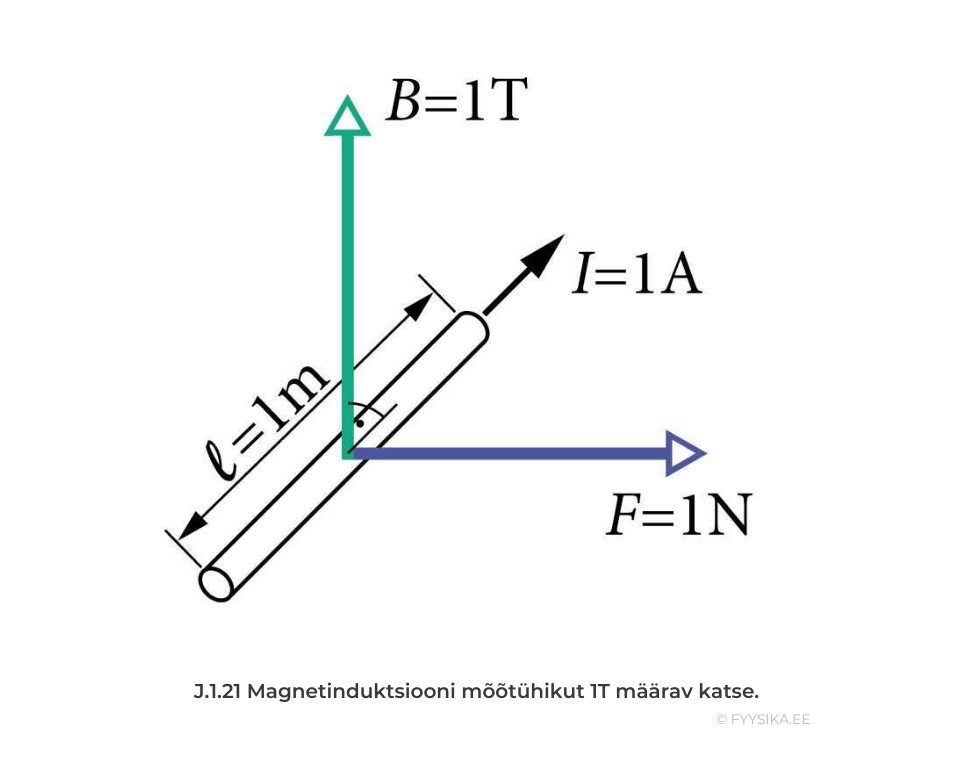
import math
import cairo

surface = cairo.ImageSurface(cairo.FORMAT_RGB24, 953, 772)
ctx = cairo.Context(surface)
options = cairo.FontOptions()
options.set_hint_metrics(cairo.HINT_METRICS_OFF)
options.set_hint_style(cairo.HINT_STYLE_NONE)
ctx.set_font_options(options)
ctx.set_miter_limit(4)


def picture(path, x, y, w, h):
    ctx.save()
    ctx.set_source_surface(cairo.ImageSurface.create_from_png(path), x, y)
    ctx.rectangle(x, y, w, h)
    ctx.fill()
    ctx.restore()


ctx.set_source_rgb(1, 1, 1)
ctx.paint()
picture("img1.png", 161, 77, 597, 528)
ctx.select_font_face("Montserrat SemiBold")
ctx.set_font_size(20)
ctx.set_source_rgb(0.22, 0.22, 0.259)
ctx.move_to(194, 698)
ctx.show_text("J.1.21 Magnetinduktsiooni mõõtühikut 1T määrav katse.")
ctx.select_font_face("Montserrat")
ctx.set_font_size(13.75)
ctx.set_source_rgb(0.725, 0.725, 0.729)
ctx.move_to(716, 724)
ctx.show_text("© FYYSIKA.EE")
surface.write_to_png("page.png")
